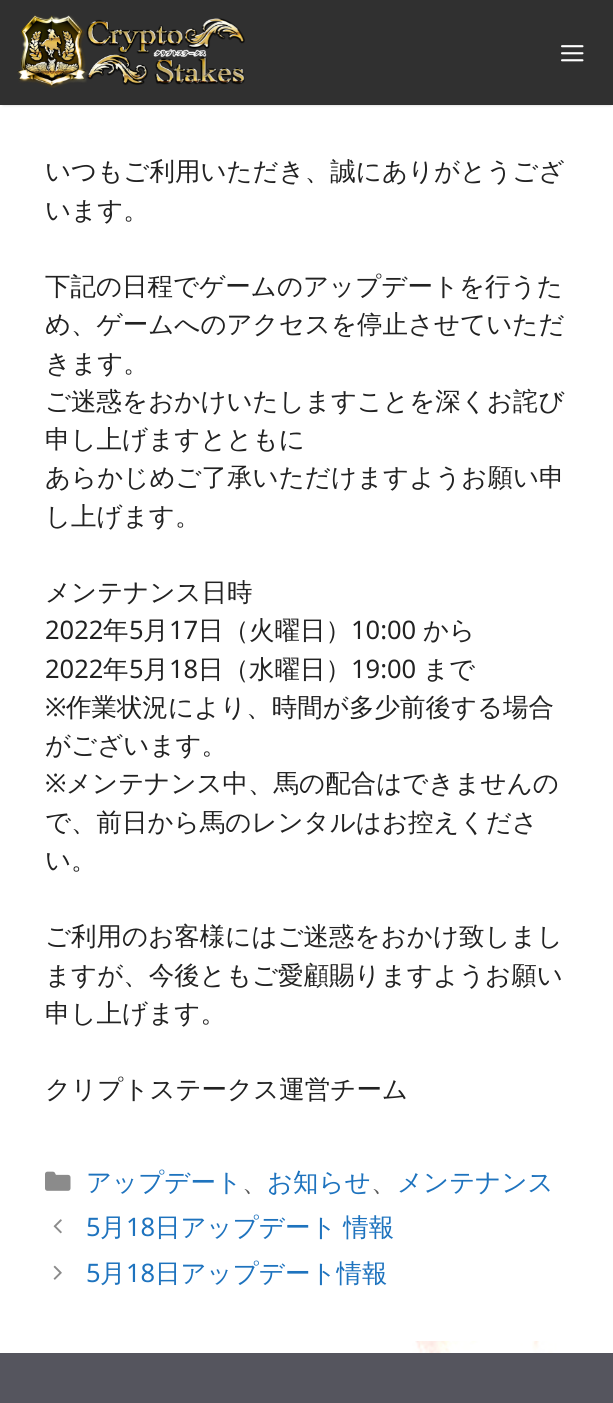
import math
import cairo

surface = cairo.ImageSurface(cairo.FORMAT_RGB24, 613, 1403)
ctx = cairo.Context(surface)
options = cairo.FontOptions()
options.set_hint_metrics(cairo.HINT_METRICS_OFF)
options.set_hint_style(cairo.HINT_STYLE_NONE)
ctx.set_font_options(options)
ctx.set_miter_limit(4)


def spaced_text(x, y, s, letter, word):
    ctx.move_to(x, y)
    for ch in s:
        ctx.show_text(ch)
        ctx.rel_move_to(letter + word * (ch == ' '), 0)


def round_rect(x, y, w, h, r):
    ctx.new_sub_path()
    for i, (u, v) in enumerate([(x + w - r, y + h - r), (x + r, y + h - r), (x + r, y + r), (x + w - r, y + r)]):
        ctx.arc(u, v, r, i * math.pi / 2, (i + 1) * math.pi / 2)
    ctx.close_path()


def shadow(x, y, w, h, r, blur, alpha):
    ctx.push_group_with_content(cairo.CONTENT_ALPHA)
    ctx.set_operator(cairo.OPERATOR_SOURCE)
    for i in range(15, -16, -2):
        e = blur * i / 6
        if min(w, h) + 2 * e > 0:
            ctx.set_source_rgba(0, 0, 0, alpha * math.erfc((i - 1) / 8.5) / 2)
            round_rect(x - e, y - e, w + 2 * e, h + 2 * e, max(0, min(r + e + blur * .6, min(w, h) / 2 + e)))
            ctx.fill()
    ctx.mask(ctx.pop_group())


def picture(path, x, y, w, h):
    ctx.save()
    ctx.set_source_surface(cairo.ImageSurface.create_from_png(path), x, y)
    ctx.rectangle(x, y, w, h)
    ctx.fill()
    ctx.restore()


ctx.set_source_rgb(1, 1, 1)
ctx.paint()
picture("img1.png", 0, 1341, 613, 12)
ctx.set_source_rgb(0, 0, 0)
shadow(3, 6, 608, 99, 0, 1.5, 0.2)
ctx.set_source_rgb(0.188, 0.188, 0.188)
ctx.rectangle(0, 0, 613, 105)
ctx.fill()
picture("img2.png", 17, 15, 228, 73)
picture("img3.png", 561, 45, 23, 17)
ctx.select_font_face("WenQuanYi Zen Hei Medium")
ctx.set_font_size(25.5)
ctx.set_source_rgb(0.133, 0.133, 0.133)
ctx.move_to(45, 180)
ctx.show_text("いつもご利用いただき、誠にありがとうござ")
ctx.move_to(45, 219)
ctx.show_text("います。")
ctx.move_to(45, 295)
ctx.show_text("下記の日程でゲームのアップデートを行うた")
ctx.move_to(45, 333)
ctx.show_text("め、ゲームへのアクセスを停止させていただ")
ctx.move_to(45, 372)
ctx.show_text("きます。")
ctx.move_to(45, 410)
ctx.show_text("ご迷惑をおかけいたしますことを深くお詫び")
ctx.move_to(45, 448)
ctx.show_text("申し上げますとともに")
ctx.move_to(45, 486)
ctx.show_text("あらかじめご了承いただけますようお願い申")
ctx.move_to(45, 525)
ctx.show_text("し上げます。")
ctx.move_to(45, 601)
ctx.show_text("メンテナンス日時")
ctx.select_font_face("Noto Sans")
ctx.move_to(45, 639)
ctx.show_text("2022")
ctx.select_font_face("WenQuanYi Zen Hei Medium")
ctx.move_to(103, 639)
ctx.show_text("年")
ctx.select_font_face("Noto Sans")
ctx.move_to(129, 639)
ctx.show_text("5")
ctx.select_font_face("WenQuanYi Zen Hei Medium")
ctx.move_to(143, 639)
ctx.show_text("月")
ctx.select_font_face("Noto Sans")
ctx.move_to(169, 639)
ctx.show_text("17")
ctx.select_font_face("WenQuanYi Zen Hei Medium")
ctx.move_to(198, 639)
ctx.show_text("日（火曜日）")
ctx.select_font_face("Noto Sans")
ctx.move_to(351, 639)
ctx.show_text("10:00")
ctx.select_font_face("WenQuanYi Zen Hei Medium")
ctx.move_to(423, 639)
ctx.show_text("から")
ctx.select_font_face("Noto Sans")
ctx.move_to(45, 678)
ctx.show_text("2022")
ctx.select_font_face("WenQuanYi Zen Hei Medium")
ctx.move_to(103, 678)
ctx.show_text("年")
ctx.select_font_face("Noto Sans")
ctx.move_to(129, 678)
ctx.show_text("5")
ctx.select_font_face("WenQuanYi Zen Hei Medium")
ctx.move_to(143, 678)
ctx.show_text("月")
ctx.select_font_face("Noto Sans")
ctx.move_to(169, 678)
ctx.show_text("18")
ctx.select_font_face("WenQuanYi Zen Hei Medium")
ctx.move_to(198, 678)
ctx.show_text("日（水曜日）")
ctx.select_font_face("Noto Sans")
ctx.move_to(351, 678)
ctx.show_text("19:00")
ctx.select_font_face("WenQuanYi Zen Hei Medium")
ctx.move_to(423, 678)
ctx.show_text("まで")
ctx.select_font_face("Noto Sans")
ctx.move_to(45, 716)
ctx.show_text("※")
ctx.select_font_face("WenQuanYi Zen Hei Medium")
ctx.move_to(66, 716)
ctx.show_text("作業状況により、時間が多少前後する場合")
ctx.move_to(45, 754)
ctx.show_text("がございます。")
ctx.select_font_face("Noto Sans")
ctx.move_to(45, 792)
ctx.show_text("※")
ctx.select_font_face("WenQuanYi Zen Hei Medium")
ctx.move_to(66, 792)
ctx.show_text("メンテナンス中、馬の配合はできませんの")
ctx.move_to(45, 831)
ctx.show_text("で、前日から馬のレンタルはお控えくださ")
ctx.move_to(45, 869)
ctx.show_text("い。")
ctx.move_to(45, 945)
ctx.show_text("ご利用のお客様にはご迷惑をおかけ致しまし")
ctx.move_to(45, 984)
ctx.show_text("ますが、今後ともご愛顧賜りますようお願い")
ctx.move_to(45, 1022)
ctx.show_text("申し上げます。")
ctx.move_to(45, 1098)
ctx.show_text("クリプトステークス運営チーム")
picture("img4.png", 45, 1171, 26, 20)
ctx.set_source_rgb(0.118, 0.451, 0.745)
ctx.move_to(86, 1191)
ctx.show_text("アップデート")
ctx.set_source_rgb(0.349, 0.349, 0.349)
ctx.move_to(242, 1191)
ctx.show_text("、")
ctx.set_source_rgb(0.118, 0.451, 0.745)
ctx.move_to(267, 1191)
ctx.show_text("お知らせ")
ctx.set_source_rgb(0.349, 0.349, 0.349)
ctx.move_to(371, 1191)
ctx.show_text("、")
ctx.set_source_rgb(0.118, 0.451, 0.745)
ctx.move_to(397, 1191)
ctx.show_text("メンテナンス")
picture("img5.png", 53, 1219, 9, 15)
ctx.select_font_face("Noto Sans")
ctx.move_to(86, 1236)
ctx.show_text("5")
ctx.select_font_face("WenQuanYi Zen Hei Medium")
ctx.move_to(100, 1236)
ctx.show_text("月")
ctx.select_font_face("Noto Sans")
ctx.move_to(126, 1236)
ctx.show_text("18")
ctx.select_font_face("WenQuanYi Zen Hei Medium")
spaced_text(155, 1236, "日アップデート 情報", 0, -1)
picture("img6.png", 53, 1265, 9, 15)
ctx.select_font_face("Noto Sans")
ctx.move_to(86, 1282)
ctx.show_text("5")
ctx.select_font_face("WenQuanYi Zen Hei Medium")
ctx.move_to(100, 1282)
ctx.show_text("月")
ctx.select_font_face("Noto Sans")
ctx.move_to(126, 1282)
ctx.show_text("18")
ctx.select_font_face("WenQuanYi Zen Hei Medium")
ctx.move_to(155, 1282)
ctx.show_text("日アップデート情報")
ctx.set_source_rgb(0.333, 0.333, 0.369)
ctx.rectangle(0, 1353, 613, 50)
ctx.fill()
surface.write_to_png("page.png")
